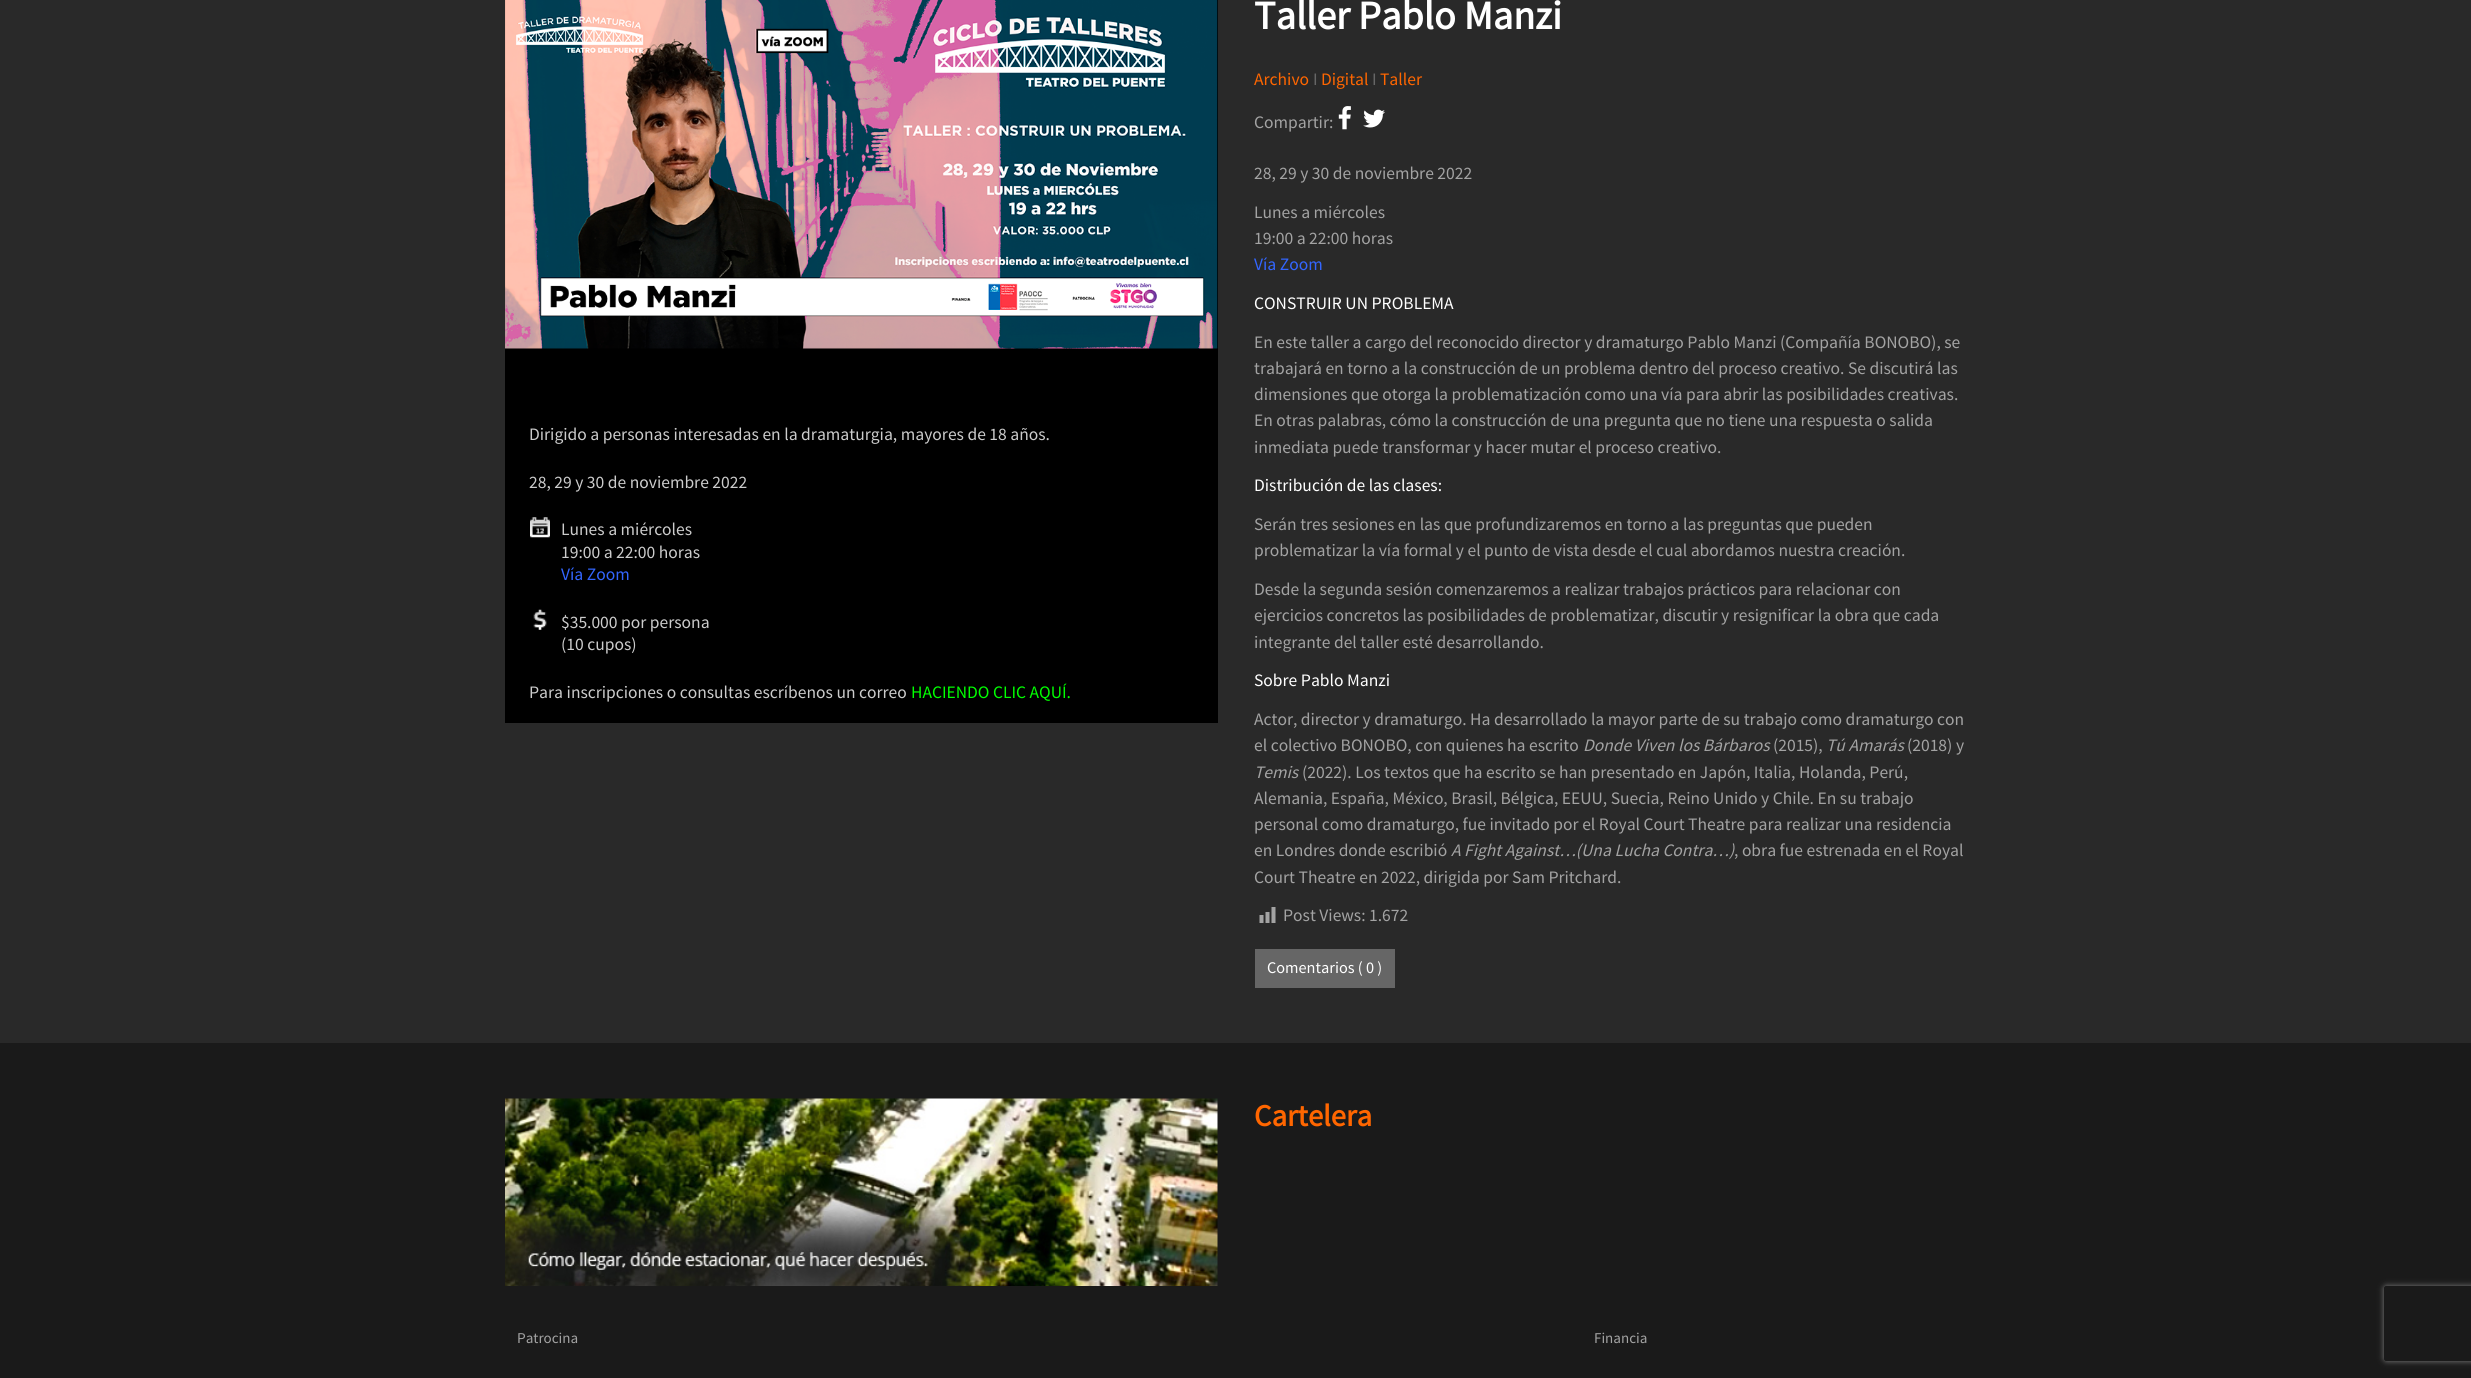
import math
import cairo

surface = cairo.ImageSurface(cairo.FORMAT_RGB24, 2471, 1378)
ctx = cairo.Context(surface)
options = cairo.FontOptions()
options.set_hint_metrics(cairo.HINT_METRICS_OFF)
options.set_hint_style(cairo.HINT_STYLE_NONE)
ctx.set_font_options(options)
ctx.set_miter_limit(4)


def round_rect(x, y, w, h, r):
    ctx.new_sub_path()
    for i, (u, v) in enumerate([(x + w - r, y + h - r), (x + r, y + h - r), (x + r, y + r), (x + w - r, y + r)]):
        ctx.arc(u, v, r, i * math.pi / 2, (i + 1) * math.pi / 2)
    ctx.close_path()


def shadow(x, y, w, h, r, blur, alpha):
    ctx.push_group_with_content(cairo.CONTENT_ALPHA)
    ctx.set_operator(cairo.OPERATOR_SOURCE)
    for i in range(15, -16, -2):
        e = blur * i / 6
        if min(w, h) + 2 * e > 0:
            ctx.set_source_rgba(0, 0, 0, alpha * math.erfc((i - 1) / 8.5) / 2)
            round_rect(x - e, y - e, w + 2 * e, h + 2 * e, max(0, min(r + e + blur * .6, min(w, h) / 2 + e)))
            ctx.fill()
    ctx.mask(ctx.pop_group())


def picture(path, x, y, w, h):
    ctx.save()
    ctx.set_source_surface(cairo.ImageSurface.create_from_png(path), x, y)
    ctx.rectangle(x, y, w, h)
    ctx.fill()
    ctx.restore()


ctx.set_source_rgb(0.161, 0.161, 0.161)
ctx.paint()
ctx.set_source_rgb(0, 0, 0)
ctx.rectangle(505, 0, 713, 723)
ctx.fill()
picture("img1.png", 505, 0, 713, 349)
ctx.select_font_face("Source Sans Pro")
ctx.set_font_size(17.5)
ctx.set_source_rgb(0.8, 0.8, 0.8)
ctx.move_to(529, 440)
ctx.show_text("Dirigido a personas interesadas en la dramaturgia, mayores de 18 años.")
ctx.move_to(529, 488)
ctx.show_text("28, 29 y 30 de noviembre 2022")
picture("img2.png", 530, 517, 20, 21)
ctx.move_to(561, 535)
ctx.show_text("Lunes a miércoles")
ctx.move_to(561, 558)
ctx.show_text("19:00 a 22:00 horas")
ctx.set_source_rgb(0.2, 0.4, 1)
ctx.move_to(561, 580)
ctx.show_text("Vía Zoom")
picture("img3.png", 533, 609, 14, 21)
ctx.set_source_rgb(0.8, 0.8, 0.8)
ctx.move_to(561, 628)
ctx.show_text("$35.000 por persona")
ctx.move_to(561, 650)
ctx.show_text("(10 cupos)")
ctx.move_to(529, 698)
ctx.show_text("Para inscripciones o consultas escríbenos un correo")
ctx.set_source_rgb(0, 1, 0)
ctx.move_to(911, 698)
ctx.show_text("HACIENDO CLIC AQUÍ.")
ctx.select_font_face("Source Sans Pro", cairo.FONT_SLANT_NORMAL, cairo.FONT_WEIGHT_BOLD)
ctx.set_font_size(40)
ctx.set_source_rgb(1, 1, 1)
ctx.move_to(1254, 29)
ctx.show_text("Taller Pablo Manzi")
ctx.select_font_face("Source Sans Pro")
ctx.set_font_size(17.5)
ctx.set_source_rgb(1, 0.4, 0)
ctx.move_to(1254, 85)
ctx.show_text("Archivo")
ctx.set_source_rgb(0.4, 0.4, 0.4)
ctx.move_to(1313, 85)
ctx.show_text("I")
ctx.set_source_rgb(1, 0.4, 0)
ctx.move_to(1321, 85)
ctx.show_text("Digital")
ctx.set_source_rgb(0.4, 0.4, 0.4)
ctx.move_to(1372, 85)
ctx.show_text("I")
ctx.set_source_rgb(1, 0.4, 0)
ctx.move_to(1380, 85)
ctx.show_text("Taller")
ctx.set_source_rgb(0.639, 0.639, 0.639)
ctx.move_to(1254, 128)
ctx.show_text("Compartir:")
picture("img4.png", 1338, 106, 13, 24)
picture("img5.png", 1363, 109, 22, 19)
ctx.move_to(1254, 179)
ctx.show_text("28, 29 y 30 de noviembre 2022")
ctx.move_to(1254, 218)
ctx.show_text("Lunes a miércoles")
ctx.move_to(1254, 244)
ctx.show_text("19:00 a 22:00 horas")
ctx.set_source_rgb(0.2, 0.4, 1)
ctx.move_to(1254, 270)
ctx.show_text("Vía Zoom")
ctx.set_source_rgb(1, 1, 1)
ctx.move_to(1254, 309)
ctx.show_text("CONSTRUIR UN PROBLEMA")
ctx.set_source_rgb(0.639, 0.639, 0.639)
ctx.move_to(1254, 348)
ctx.show_text("En este taller a cargo del reconocido director y dramaturgo Pablo Manzi (Compañía BONOBO), se")
ctx.move_to(1254, 374)
ctx.show_text("trabajará en torno a la construcción de un problema dentro del proceso creativo. Se discutirá las")
ctx.move_to(1254, 400)
ctx.show_text("dimensiones que otorga la problematización como una vía para abrir las posibilidades creativas.")
ctx.move_to(1254, 426)
ctx.show_text("En otras palabras, cómo la construcción de una pregunta que no tiene una respuesta o salida")
ctx.move_to(1254, 453)
ctx.show_text("inmediata puede transformar y hacer mutar el proceso creativo.")
ctx.set_source_rgb(1, 1, 1)
ctx.move_to(1254, 491)
ctx.show_text("Distribución de las clases:")
ctx.set_source_rgb(0.639, 0.639, 0.639)
ctx.move_to(1254, 530)
ctx.show_text("Serán tres sesiones en las que profundizaremos en torno a las preguntas que pueden")
ctx.move_to(1254, 556)
ctx.show_text("problematizar la vía formal y el punto de vista desde el cual abordamos nuestra creación.")
ctx.move_to(1254, 595)
ctx.show_text("Desde la segunda sesión comenzaremos a realizar trabajos prácticos para relacionar con")
ctx.move_to(1254, 621)
ctx.show_text("ejercicios concretos las posibilidades de problematizar, discutir y resignificar la obra que cada")
ctx.move_to(1254, 648)
ctx.show_text("integrante del taller esté desarrollando.")
ctx.set_source_rgb(1, 1, 1)
ctx.move_to(1254, 686)
ctx.show_text("Sobre Pablo Manzi")
ctx.set_source_rgb(0.639, 0.639, 0.639)
ctx.move_to(1254, 725)
ctx.show_text("Actor, director y dramaturgo. Ha desarrollado la mayor parte de su trabajo como dramaturgo con")
ctx.move_to(1254, 751)
ctx.show_text("el colectivo BONOBO, con quienes ha escrito")
ctx.select_font_face("Source Sans Pro", cairo.FONT_SLANT_ITALIC)
ctx.move_to(1583, 751)
ctx.show_text("Donde Viven los Bárbaros")
ctx.select_font_face("Source Sans Pro")
ctx.move_to(1773, 751)
ctx.show_text("(2015),")
ctx.select_font_face("Source Sans Pro", cairo.FONT_SLANT_ITALIC)
ctx.move_to(1826, 751)
ctx.show_text("Tú Amarás")
ctx.select_font_face("Source Sans Pro")
ctx.move_to(1907, 751)
ctx.show_text("(2018) y")
ctx.select_font_face("Source Sans Pro", cairo.FONT_SLANT_ITALIC)
ctx.move_to(1254, 778)
ctx.show_text("Temis")
ctx.select_font_face("Source Sans Pro")
ctx.move_to(1302, 778)
ctx.show_text("(2022). Los textos que ha escrito se han presentado en Japón, Italia, Holanda, Perú,")
ctx.move_to(1254, 804)
ctx.show_text("Alemania, España, México, Brasil, Bélgica, EEUU, Suecia, Reino Unido y Chile. En su trabajo")
ctx.move_to(1254, 830)
ctx.show_text("personal como dramaturgo, fue invitado por el Royal Court Theatre para realizar una residencia")
ctx.move_to(1254, 856)
ctx.show_text("en Londres donde escribió")
ctx.select_font_face("Source Sans Pro", cairo.FONT_SLANT_ITALIC)
ctx.move_to(1451, 856)
ctx.show_text("A Fight Against…(Una Lucha Contra…)")
ctx.select_font_face("Source Sans Pro")
ctx.move_to(1734, 856)
ctx.show_text(", obra fue estrenada en el Royal")
ctx.move_to(1254, 883)
ctx.show_text("Court Theatre en 2022, dirigida por Sam Pritchard.")
picture("img6.png", 1259, 907, 17, 16)
ctx.move_to(1283, 921)
ctx.show_text("Post Views: 1.672")
ctx.set_source_rgb(0.4, 0.4, 0.4)
ctx.rectangle(1255, 949, 140, 39)
ctx.fill()
ctx.set_font_size(16.25)
ctx.set_source_rgb(1, 1, 1)
ctx.move_to(1267, 973)
ctx.show_text("Comentarios ( 0 )")
ctx.set_source_rgb(0.102, 0.102, 0.102)
ctx.rectangle(0, 1043, 2471, 335)
ctx.fill()
picture("img7.png", 505, 1098, 713, 188)
ctx.select_font_face("Source Sans Pro", cairo.FONT_SLANT_NORMAL, cairo.FONT_WEIGHT_BOLD)
ctx.set_font_size(30.5)
ctx.set_source_rgb(1, 0.4, 0)
ctx.move_to(1254, 1126)
ctx.show_text("Cartelera")
ctx.select_font_face("Source Sans Pro")
ctx.set_font_size(15)
ctx.set_source_rgb(0.639, 0.639, 0.639)
ctx.move_to(517, 1343)
ctx.show_text("Patrocina")
ctx.move_to(1594, 1343)
ctx.show_text("Financia")
ctx.save()
ctx.set_fill_rule(cairo.FILL_RULE_EVEN_ODD)
ctx.new_path()
ctx.move_to(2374, 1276)
ctx.line_to(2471, 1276)
ctx.line_to(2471, 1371)
ctx.line_to(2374, 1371)
ctx.close_path()
ctx.move_to(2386.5, 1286)
ctx.line_to(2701.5, 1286)
ctx.curve_to(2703, 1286, 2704, 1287, 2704, 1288.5)
ctx.line_to(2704, 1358.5)
ctx.curve_to(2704, 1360, 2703, 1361, 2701.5, 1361)
ctx.line_to(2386.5, 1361)
ctx.curve_to(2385, 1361, 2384, 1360, 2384, 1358.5)
ctx.line_to(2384, 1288.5)
ctx.curve_to(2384, 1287, 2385, 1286, 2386.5, 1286)
ctx.close_path()
ctx.clip()
ctx.set_source_rgb(0.502, 0.502, 0.502)
shadow(2384, 1286, 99, 75, 2.5, 3, 1)
ctx.restore()
surface.write_to_png("page.png")
